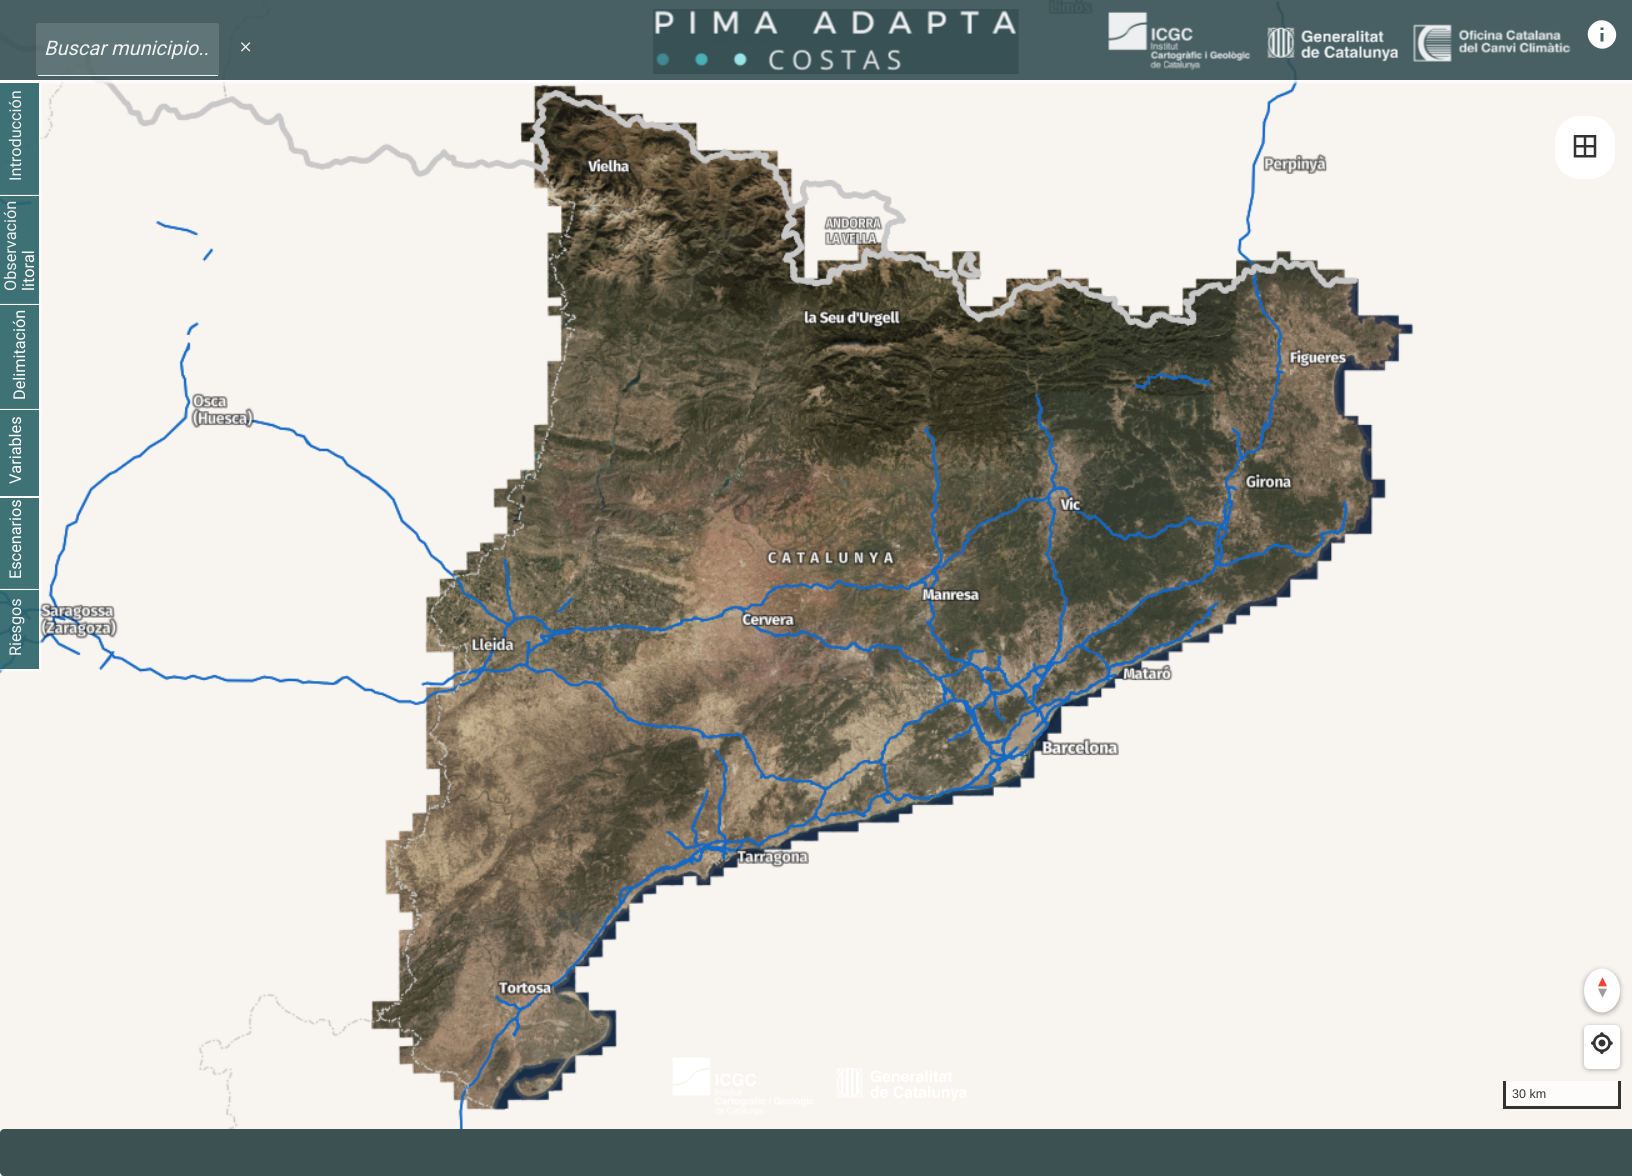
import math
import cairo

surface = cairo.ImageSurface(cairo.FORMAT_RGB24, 1632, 1176)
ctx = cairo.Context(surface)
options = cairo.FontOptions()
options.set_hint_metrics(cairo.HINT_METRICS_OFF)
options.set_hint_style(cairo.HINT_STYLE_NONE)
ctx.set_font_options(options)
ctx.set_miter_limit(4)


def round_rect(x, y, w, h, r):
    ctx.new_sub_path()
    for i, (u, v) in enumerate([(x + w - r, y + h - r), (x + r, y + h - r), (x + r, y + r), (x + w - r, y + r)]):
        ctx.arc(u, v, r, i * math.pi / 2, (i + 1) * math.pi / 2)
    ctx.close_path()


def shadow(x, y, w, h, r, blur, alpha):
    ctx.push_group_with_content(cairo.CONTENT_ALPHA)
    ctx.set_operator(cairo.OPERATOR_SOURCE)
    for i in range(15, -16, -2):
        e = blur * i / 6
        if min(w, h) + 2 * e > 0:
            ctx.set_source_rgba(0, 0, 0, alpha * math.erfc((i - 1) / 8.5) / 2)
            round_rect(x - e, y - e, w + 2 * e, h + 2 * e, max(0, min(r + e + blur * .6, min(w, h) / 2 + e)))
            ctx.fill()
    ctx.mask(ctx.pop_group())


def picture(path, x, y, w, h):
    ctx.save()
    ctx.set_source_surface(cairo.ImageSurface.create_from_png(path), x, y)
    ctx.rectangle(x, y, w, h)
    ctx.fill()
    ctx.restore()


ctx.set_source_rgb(1, 1, 1)
ctx.paint()
picture("img7.png", 0, 0, 1632, 1176)
ctx.save()
ctx.rectangle(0, 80, 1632, 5)
ctx.clip()
shadow(0, 0, 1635, 83, 0, 1, 0.85)
ctx.restore()
ctx.set_source_rgba(0.212, 0.314, 0.329, 0.9)
ctx.rectangle(0, 0, 1632, 80)
ctx.fill()
picture("img1.png", 653, 9, 366, 65)
ctx.set_source_rgb(0.996, 0.996, 0.996)
ctx.new_path()
ctx.move_to(1603.5, 30)
ctx.line_to(1603.5, 27.5)
ctx.line_to(1600.5, 27.5)
ctx.line_to(1600.5, 30)
ctx.close_path()
ctx.move_to(1603.5, 41.5)
ctx.line_to(1603.5, 33)
ctx.line_to(1600.5, 33)
ctx.line_to(1600.5, 41.5)
ctx.close_path()
ctx.move_to(1592, 24.5)
ctx.curve_to(1605, 11.5, 1625, 31, 1612, 44.5)
ctx.curve_to(1598.5, 57.5, 1579, 37.5, 1592, 24.5)
ctx.close_path()
ctx.fill()
ctx.set_source_rgba(1, 1, 1, 0.13)
round_rect(36, 23, 183, 53, 2.5)
ctx.fill()
ctx.set_source_rgba(1, 1, 1, 0.9)
ctx.rectangle(38, 75, 180, 1)
ctx.fill()
ctx.select_font_face("Roboto", cairo.FONT_SLANT_ITALIC)
ctx.set_font_size(20)
ctx.set_source_rgb(0.937, 0.945, 0.945)
ctx.move_to(44, 55)
ctx.show_text("Buscar municipio..")
picture("img2.png", 241, 42, 10, 10)
picture("img3.png", 1108, 11, 143, 60)
picture("img4.png", 1267, 27, 132, 35)
picture("img5.png", 1413, 24, 158, 38)
ctx.save()
ctx.set_fill_rule(cairo.FILL_RULE_EVEN_ODD)
ctx.new_path()
ctx.move_to(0, 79)
ctx.line_to(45, 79)
ctx.line_to(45, 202)
ctx.line_to(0, 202)
ctx.close_path()
ctx.move_to(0, 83)
ctx.line_to(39, 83)
ctx.line_to(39, 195)
ctx.line_to(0, 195)
ctx.close_path()
ctx.clip()
ctx.set_source_rgb(1, 1, 1)
shadow(0, 83, 41, 115, 0, 1, 0.85)
ctx.restore()
ctx.set_source_rgba(0.165, 0.388, 0.404, 0.9)
ctx.rectangle(0, 83, 39, 112)
ctx.fill()
ctx.select_font_face("Roboto")
ctx.set_font_size(16.25)
ctx.set_source_rgb(0.937, 0.945, 0.945)
ctx.save()
ctx.translate(21, 181)
ctx.rotate(-90 * math.pi / 180)
ctx.move_to(0, 0)
ctx.show_text("Introducción")
ctx.restore()
ctx.save()
ctx.set_fill_rule(cairo.FILL_RULE_EVEN_ODD)
ctx.new_path()
ctx.move_to(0, 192)
ctx.line_to(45, 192)
ctx.line_to(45, 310)
ctx.line_to(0, 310)
ctx.close_path()
ctx.move_to(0, 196)
ctx.line_to(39, 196)
ctx.line_to(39, 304)
ctx.line_to(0, 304)
ctx.close_path()
ctx.clip()
ctx.set_source_rgb(0.996, 0.996, 0.996)
shadow(0, 196, 41, 110, 0, 1, 0.95)
ctx.restore()
ctx.set_source_rgba(0.165, 0.388, 0.404, 0.9)
ctx.rectangle(0, 196, 39, 108)
ctx.fill()
ctx.set_source_rgb(0.937, 0.945, 0.945)
ctx.save()
ctx.translate(16, 291)
ctx.rotate(-90 * math.pi / 180)
ctx.move_to(0, 0)
ctx.show_text("Observación")
ctx.restore()
ctx.set_source_rgb(0.996, 0.996, 0.996)
ctx.save()
ctx.translate(34, 291)
ctx.rotate(-90 * math.pi / 180)
ctx.move_to(0, 0)
ctx.show_text("litoral")
ctx.restore()
ctx.set_source_rgb(0.996, 0.996, 0.996)
shadow(0, 305, 41, 106, 0, 1, 0.95)
ctx.set_source_rgb(0.247, 0.447, 0.459)
ctx.rectangle(0, 305, 39, 104)
ctx.fill()
ctx.set_source_rgb(0.996, 0.996, 0.996)
ctx.save()
ctx.translate(25, 400)
ctx.rotate(-90 * math.pi / 180)
ctx.move_to(0, 0)
ctx.show_text("Delimitación")
ctx.restore()
ctx.set_source_rgb(0.996, 0.996, 0.996)
shadow(0, 410, 41, 89, 0, 1, 0.95)
ctx.set_source_rgb(0.247, 0.447, 0.459)
ctx.rectangle(0, 410, 39, 86)
ctx.fill()
ctx.set_source_rgb(0.996, 0.996, 0.996)
ctx.save()
ctx.translate(21, 484)
ctx.rotate(-90 * math.pi / 180)
ctx.move_to(0, 0)
ctx.show_text("Variables")
ctx.restore()
ctx.set_source_rgb(1, 1, 1)
shadow(0, 498, 41, 93, 0, 1, 0.85)
ctx.set_source_rgb(0.247, 0.447, 0.459)
ctx.rectangle(0, 498, 39, 91)
ctx.fill()
ctx.set_source_rgb(0.996, 0.996, 0.996)
ctx.save()
ctx.translate(21, 579)
ctx.rotate(-90 * math.pi / 180)
ctx.move_to(0, 0)
ctx.show_text("Escenarios")
ctx.restore()
ctx.save()
ctx.set_fill_rule(cairo.FILL_RULE_EVEN_ODD)
ctx.new_path()
ctx.move_to(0, 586)
ctx.line_to(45, 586)
ctx.line_to(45, 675)
ctx.line_to(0, 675)
ctx.close_path()
ctx.move_to(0, 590)
ctx.line_to(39, 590)
ctx.line_to(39, 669)
ctx.line_to(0, 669)
ctx.close_path()
ctx.clip()
ctx.set_source_rgb(1, 1, 1)
shadow(0, 590, 41, 81, 0, 1, 0.85)
ctx.restore()
ctx.set_source_rgba(0.165, 0.388, 0.404, 0.9)
ctx.rectangle(0, 590, 39, 79)
ctx.fill()
ctx.set_source_rgb(0.937, 0.945, 0.945)
ctx.save()
ctx.translate(21, 656)
ctx.rotate(-90 * math.pi / 180)
ctx.move_to(0, 0)
ctx.show_text("Riesgos")
ctx.restore()
ctx.set_source_rgb(1, 1, 1)
round_rect(1555, 116, 60, 63, 25)
ctx.fill()
picture("img6.png", 1573, 135, 24, 23)
picture("img8.png", 672, 1057, 142, 59)
picture("img9.png", 837, 1068, 130, 33)
ctx.set_source_rgb(0, 0, 0)
shadow(1584, 970, 36, 44, 18, 2.5, 0.3)
ctx.set_source_rgb(1, 1, 1)
ctx.new_path()
ctx.move_to(1602, 968.5)
ctx.curve_to(1612, 968.5, 1620, 978.5, 1620, 990.5)
ctx.curve_to(1620, 1002.5, 1612, 1012.5, 1602, 1012.5)
ctx.curve_to(1592, 1012.5, 1584, 1002.5, 1584, 990.5)
ctx.curve_to(1584, 978.5, 1592, 968.5, 1602, 968.5)
ctx.close_path()
ctx.fill()
picture("img10.png", 1598, 977, 9, 21)
ctx.set_source_rgb(0, 0, 0)
shadow(1584, 1026, 36, 44, 5, 2.5, 0.3)
ctx.set_source_rgb(1, 1, 1)
round_rect(1584, 1025, 36, 44, 5)
ctx.fill()
picture("img11.png", 1591, 1032, 22, 22)
ctx.set_source_rgb(0.992, 0.988, 0.984)
ctx.rectangle(1506, 1081, 112, 25)
ctx.fill()
ctx.set_source_rgb(0.2, 0.2, 0.2)
ctx.rectangle(1618, 1081, 3, 28)
ctx.fill()
ctx.rectangle(1503, 1106, 117, 3)
ctx.fill()
ctx.rectangle(1503, 1081, 3, 28)
ctx.fill()
ctx.select_font_face("Liberation Sans")
ctx.set_font_size(12.5)
ctx.move_to(1512, 1098)
ctx.show_text("30 km")
ctx.set_source_rgb(0.235, 0.318, 0.318)
ctx.new_path()
ctx.move_to(4, 1129)
ctx.line_to(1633, 1129)
ctx.line_to(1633, 1176)
ctx.line_to(4, 1176)
ctx.curve_to(2, 1176, 0, 1174, 0, 1172)
ctx.line_to(0, 1133)
ctx.curve_to(0, 1131, 2, 1129, 4, 1129)
ctx.close_path()
ctx.fill()
surface.write_to_png("page.png")
